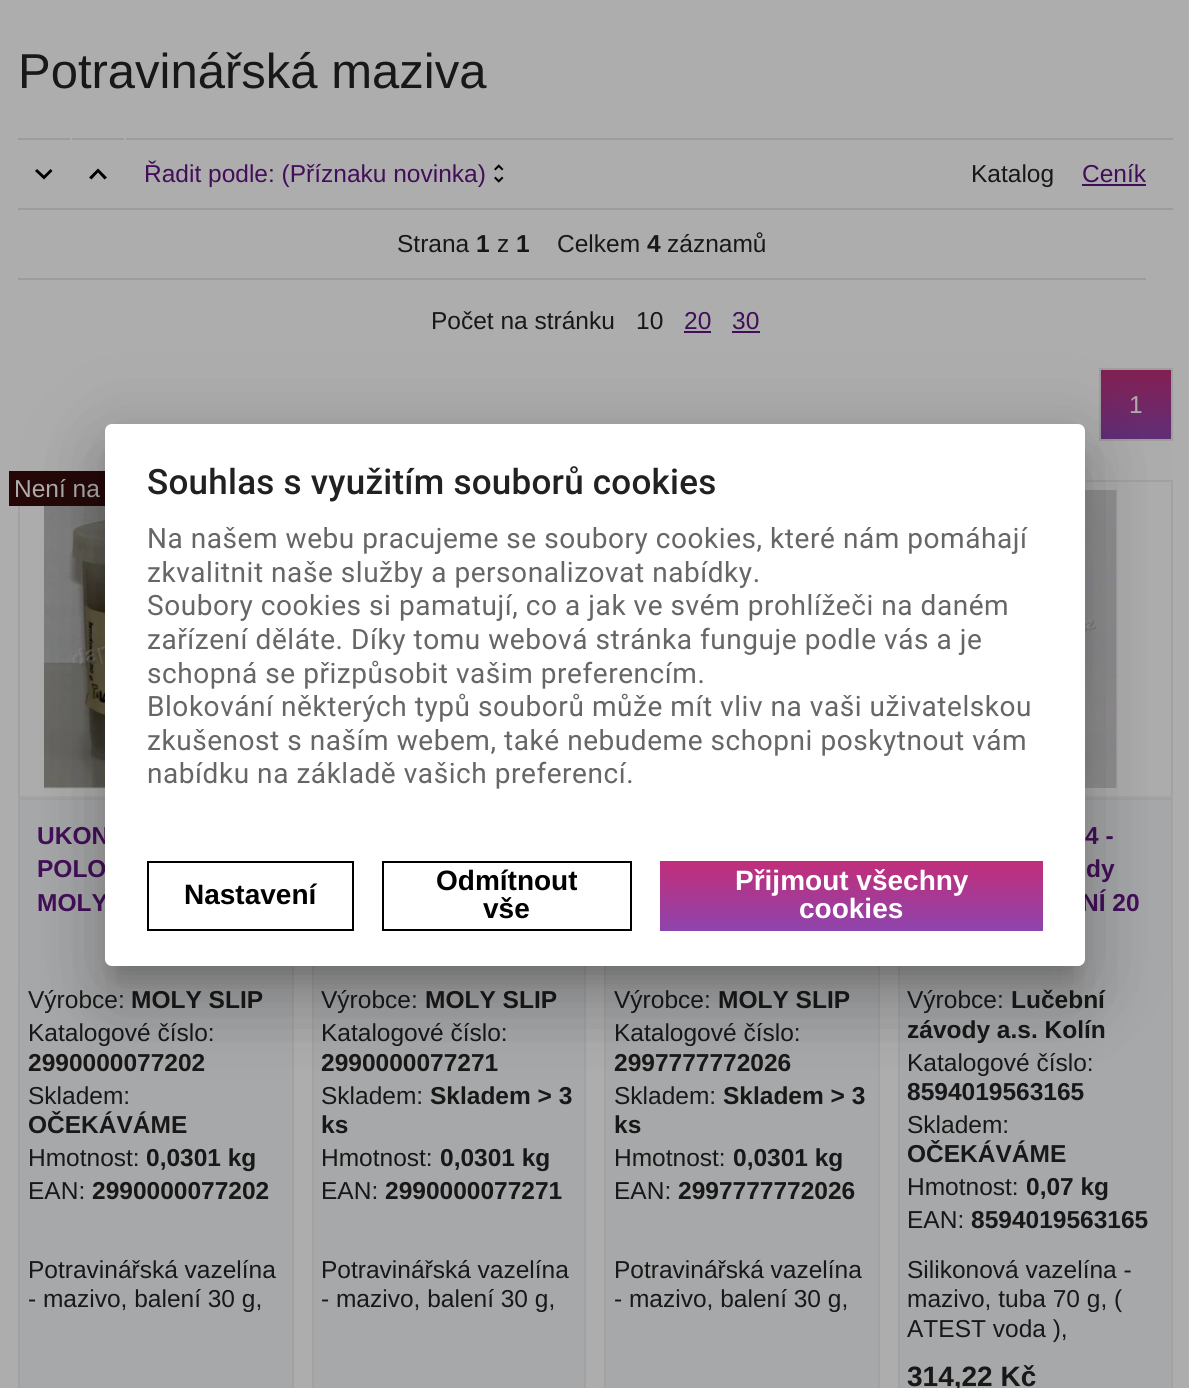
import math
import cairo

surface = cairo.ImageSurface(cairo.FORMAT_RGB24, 1189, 1388)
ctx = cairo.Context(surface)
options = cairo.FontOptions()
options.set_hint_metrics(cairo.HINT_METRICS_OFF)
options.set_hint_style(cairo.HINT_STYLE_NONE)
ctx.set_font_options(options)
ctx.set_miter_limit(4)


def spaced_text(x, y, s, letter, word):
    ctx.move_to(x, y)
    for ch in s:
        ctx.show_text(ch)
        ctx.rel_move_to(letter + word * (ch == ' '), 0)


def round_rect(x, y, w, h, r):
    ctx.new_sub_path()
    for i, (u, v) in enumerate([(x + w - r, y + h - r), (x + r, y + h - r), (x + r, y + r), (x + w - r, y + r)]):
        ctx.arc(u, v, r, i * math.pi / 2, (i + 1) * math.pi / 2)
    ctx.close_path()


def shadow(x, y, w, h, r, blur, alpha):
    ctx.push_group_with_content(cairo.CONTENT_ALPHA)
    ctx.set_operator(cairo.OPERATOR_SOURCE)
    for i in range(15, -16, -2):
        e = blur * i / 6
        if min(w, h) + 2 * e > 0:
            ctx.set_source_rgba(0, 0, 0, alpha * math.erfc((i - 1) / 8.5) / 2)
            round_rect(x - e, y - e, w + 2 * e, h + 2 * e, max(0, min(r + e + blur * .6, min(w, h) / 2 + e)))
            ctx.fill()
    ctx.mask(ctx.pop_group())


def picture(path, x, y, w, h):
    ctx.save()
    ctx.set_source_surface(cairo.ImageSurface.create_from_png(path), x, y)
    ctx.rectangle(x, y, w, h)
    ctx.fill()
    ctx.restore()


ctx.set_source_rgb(0.678, 0.678, 0.678)
ctx.paint()
ctx.select_font_face("Liberation Sans")
ctx.set_font_size(49)
ctx.set_source_rgb(0.094, 0.094, 0.094)
ctx.move_to(18, 88)
ctx.show_text("Potravinářská maziva")
ctx.set_source_rgb(0.612, 0.612, 0.612)
ctx.rectangle(18, 138, 1155, 2)
ctx.fill()
ctx.set_source_rgb(0.678, 0.678, 0.678)
ctx.rectangle(70, 138, 2, 2)
ctx.fill()
ctx.set_source_rgb(0, 0, 0)
ctx.new_path()
ctx.move_to(37, 169)
ctx.line_to(44, 175.5)
ctx.line_to(50.5, 169)
ctx.line_to(52.5, 171)
ctx.line_to(44, 179.5)
ctx.line_to(35, 171)
ctx.close_path()
ctx.fill()
ctx.set_source_rgb(0.678, 0.678, 0.678)
ctx.rectangle(124, 138, 2, 2)
ctx.fill()
ctx.set_source_rgb(0, 0, 0)
ctx.new_path()
ctx.move_to(91.5, 179.5)
ctx.line_to(98, 172.5)
ctx.line_to(104.5, 179.5)
ctx.line_to(107, 177.5)
ctx.line_to(98, 168.5)
ctx.line_to(89, 177.5)
ctx.close_path()
ctx.fill()
ctx.set_font_size(24.5)
ctx.set_source_rgb(0.263, 0.055, 0.349)
ctx.move_to(144, 182)
ctx.show_text("Řadit podle: (Příznaku novinka)")
picture("img1.png", 494, 164, 10, 19)
ctx.set_source_rgb(0.612, 0.612, 0.612)
ctx.rectangle(18, 208, 1155, 2)
ctx.fill()
ctx.set_source_rgb(0.094, 0.094, 0.094)
ctx.move_to(971, 182)
ctx.show_text("Katalog")
ctx.set_source_rgb(0.263, 0.055, 0.349)
ctx.move_to(1082, 182)
ctx.show_text("Ceník")
ctx.rectangle(1082, 184, 64, 2)
ctx.fill()
ctx.set_source_rgb(0.094, 0.094, 0.094)
ctx.move_to(397, 252)
ctx.show_text("Strana")
ctx.select_font_face("Liberation Sans", cairo.FONT_SLANT_NORMAL, cairo.FONT_WEIGHT_BOLD)
ctx.move_to(476, 252)
ctx.show_text("1")
ctx.select_font_face("Liberation Sans")
ctx.move_to(497, 252)
ctx.show_text("z")
ctx.select_font_face("Liberation Sans", cairo.FONT_SLANT_NORMAL, cairo.FONT_WEIGHT_BOLD)
ctx.move_to(516, 252)
ctx.show_text("1")
ctx.select_font_face("Liberation Sans")
ctx.move_to(557, 252)
ctx.show_text("Celkem")
ctx.select_font_face("Liberation Sans", cairo.FONT_SLANT_NORMAL, cairo.FONT_WEIGHT_BOLD)
ctx.move_to(647, 252)
ctx.show_text("4")
ctx.select_font_face("Liberation Sans")
ctx.move_to(667, 252)
ctx.show_text("záznamů")
ctx.set_source_rgb(0.612, 0.612, 0.612)
ctx.rectangle(18, 278, 1128, 2)
ctx.fill()
ctx.set_source_rgb(0.094, 0.094, 0.094)
ctx.move_to(431, 329)
ctx.show_text("Počet na stránku")
ctx.move_to(636, 329)
ctx.show_text("10")
ctx.set_source_rgb(0.263, 0.055, 0.349)
ctx.move_to(684, 329)
ctx.show_text("20")
ctx.rectangle(684, 331, 27, 2)
ctx.fill()
ctx.move_to(732, 329)
ctx.show_text("30")
ctx.rectangle(732, 331, 28, 2)
ctx.fill()
gradient = cairo.LinearGradient(1136, 439, 1136, 369)
gradient.add_color_stop_rgba(0, 0.38, 0.18, 0.463, 1)
gradient.add_color_stop_rgba(1, 0.514, 0.122, 0.322, 1)
ctx.set_source(gradient)
ctx.rectangle(1101, 370, 70, 69)
ctx.fill()
ctx.rectangle(1100, 369, 72, 71)
ctx.set_source_rgb(0.62, 0.62, 0.62)
ctx.stroke()
ctx.set_source_rgb(0.678, 0.678, 0.678)
ctx.move_to(1129, 413)
ctx.show_text("1")
ctx.set_source_rgb(0.145, 0.031, 0.031)
ctx.rectangle(9, 471, 96, 35)
ctx.fill()
ctx.set_source_rgb(0.678, 0.678, 0.678)
ctx.move_to(14, 497)
ctx.show_text("Není na")
ctx.set_source_rgb(0.647, 0.647, 0.647)
ctx.rectangle(18, 796, 87, 2)
ctx.fill()
ctx.set_source_rgb(0.635, 0.635, 0.635)
ctx.rectangle(18, 506, 2, 292)
ctx.fill()
picture("img2.png", 44, 506, 61, 283)
ctx.set_source_rgb(0.655, 0.659, 0.663)
ctx.rectangle(19, 799, 274, 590)
ctx.fill_preserve()
ctx.set_source_rgb(0.635, 0.635, 0.635)
ctx.stroke()
ctx.select_font_face("Liberation Sans", cairo.FONT_SLANT_NORMAL, cairo.FONT_WEIGHT_BOLD)
ctx.set_source_rgb(0.263, 0.055, 0.349)
ctx.move_to(37, 844)
ctx.show_text("UKON")
ctx.move_to(37, 877)
ctx.show_text("POLO")
ctx.move_to(37, 911)
ctx.show_text("MOLY")
ctx.select_font_face("Liberation Sans")
ctx.set_source_rgb(0.094, 0.094, 0.094)
ctx.move_to(28, 1008)
ctx.show_text("Výrobce:")
ctx.select_font_face("Liberation Sans", cairo.FONT_SLANT_NORMAL, cairo.FONT_WEIGHT_BOLD)
ctx.move_to(131, 1008)
ctx.show_text("MOLY SLIP")
ctx.select_font_face("Liberation Sans")
ctx.move_to(28, 1041)
ctx.show_text("Katalogové číslo:")
ctx.select_font_face("Liberation Sans", cairo.FONT_SLANT_NORMAL, cairo.FONT_WEIGHT_BOLD)
ctx.move_to(28, 1071)
ctx.show_text("2990000077202")
ctx.select_font_face("Liberation Sans")
ctx.move_to(28, 1104)
ctx.show_text("Skladem:")
ctx.select_font_face("Liberation Sans", cairo.FONT_SLANT_NORMAL, cairo.FONT_WEIGHT_BOLD)
ctx.move_to(28, 1133)
ctx.show_text("OČEKÁVÁME")
ctx.select_font_face("Liberation Sans")
ctx.move_to(28, 1166)
ctx.show_text("Hmotnost:")
ctx.select_font_face("Liberation Sans", cairo.FONT_SLANT_NORMAL, cairo.FONT_WEIGHT_BOLD)
ctx.move_to(146, 1166)
ctx.show_text("0,0301 kg")
ctx.select_font_face("Liberation Sans")
ctx.move_to(28, 1199)
ctx.show_text("EAN:")
ctx.select_font_face("Liberation Sans", cairo.FONT_SLANT_NORMAL, cairo.FONT_WEIGHT_BOLD)
ctx.move_to(92, 1199)
ctx.show_text("2990000077202")
ctx.select_font_face("Liberation Sans")
ctx.move_to(28, 1278)
ctx.show_text("Potravinářská vazelína")
ctx.move_to(28, 1307)
ctx.show_text("- mazivo, balení 30 g,")
ctx.set_source_rgb(0.655, 0.659, 0.663)
ctx.rectangle(314, 966, 270, 422)
ctx.fill()
ctx.rectangle(313, 799, 272, 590)
ctx.set_source_rgb(0.635, 0.635, 0.635)
ctx.stroke()
ctx.set_source_rgb(0.094, 0.094, 0.094)
ctx.move_to(321, 1008)
ctx.show_text("Výrobce:")
ctx.select_font_face("Liberation Sans", cairo.FONT_SLANT_NORMAL, cairo.FONT_WEIGHT_BOLD)
ctx.move_to(425, 1008)
ctx.show_text("MOLY SLIP")
ctx.select_font_face("Liberation Sans")
ctx.move_to(321, 1041)
ctx.show_text("Katalogové číslo:")
ctx.select_font_face("Liberation Sans", cairo.FONT_SLANT_NORMAL, cairo.FONT_WEIGHT_BOLD)
ctx.move_to(321, 1071)
ctx.show_text("2990000077271")
ctx.select_font_face("Liberation Sans")
ctx.move_to(321, 1104)
ctx.show_text("Skladem:")
ctx.select_font_face("Liberation Sans", cairo.FONT_SLANT_NORMAL, cairo.FONT_WEIGHT_BOLD)
ctx.move_to(430, 1104)
ctx.show_text("Skladem > 3")
ctx.move_to(321, 1133)
ctx.show_text("ks")
ctx.select_font_face("Liberation Sans")
ctx.move_to(321, 1166)
ctx.show_text("Hmotnost:")
ctx.select_font_face("Liberation Sans", cairo.FONT_SLANT_NORMAL, cairo.FONT_WEIGHT_BOLD)
ctx.move_to(440, 1166)
ctx.show_text("0,0301 kg")
ctx.select_font_face("Liberation Sans")
ctx.move_to(321, 1199)
ctx.show_text("EAN:")
ctx.select_font_face("Liberation Sans", cairo.FONT_SLANT_NORMAL, cairo.FONT_WEIGHT_BOLD)
ctx.move_to(385, 1199)
ctx.show_text("2990000077271")
ctx.select_font_face("Liberation Sans")
ctx.move_to(321, 1278)
ctx.show_text("Potravinářská vazelína")
ctx.move_to(321, 1307)
ctx.show_text("- mazivo, balení 30 g,")
ctx.set_source_rgb(0.655, 0.659, 0.663)
ctx.rectangle(606, 966, 272, 422)
ctx.fill()
ctx.rectangle(605, 799, 274, 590)
ctx.set_source_rgb(0.635, 0.635, 0.635)
ctx.stroke()
ctx.set_source_rgb(0.094, 0.094, 0.094)
ctx.move_to(614, 1008)
ctx.show_text("Výrobce:")
ctx.select_font_face("Liberation Sans", cairo.FONT_SLANT_NORMAL, cairo.FONT_WEIGHT_BOLD)
ctx.move_to(718, 1008)
ctx.show_text("MOLY SLIP")
ctx.select_font_face("Liberation Sans")
ctx.move_to(614, 1041)
ctx.show_text("Katalogové číslo:")
ctx.select_font_face("Liberation Sans", cairo.FONT_SLANT_NORMAL, cairo.FONT_WEIGHT_BOLD)
ctx.move_to(614, 1071)
ctx.show_text("2997777772026")
ctx.select_font_face("Liberation Sans")
ctx.move_to(614, 1104)
ctx.show_text("Skladem:")
ctx.select_font_face("Liberation Sans", cairo.FONT_SLANT_NORMAL, cairo.FONT_WEIGHT_BOLD)
ctx.move_to(723, 1104)
ctx.show_text("Skladem > 3")
ctx.move_to(614, 1133)
ctx.show_text("ks")
ctx.select_font_face("Liberation Sans")
ctx.move_to(614, 1166)
ctx.show_text("Hmotnost:")
ctx.select_font_face("Liberation Sans", cairo.FONT_SLANT_NORMAL, cairo.FONT_WEIGHT_BOLD)
ctx.move_to(733, 1166)
ctx.show_text("0,0301 kg")
ctx.select_font_face("Liberation Sans")
ctx.move_to(614, 1199)
ctx.show_text("EAN:")
ctx.select_font_face("Liberation Sans", cairo.FONT_SLANT_NORMAL, cairo.FONT_WEIGHT_BOLD)
ctx.move_to(678, 1199)
ctx.show_text("2997777772026")
ctx.select_font_face("Liberation Sans")
ctx.move_to(614, 1278)
ctx.show_text("Potravinářská vazelína")
ctx.move_to(614, 1307)
ctx.show_text("- mazivo, balení 30 g,")
ctx.set_source_rgb(0.635, 0.635, 0.635)
ctx.rectangle(1085, 480, 88, 2)
ctx.fill()
ctx.rectangle(1171, 480, 2, 318)
ctx.fill()
ctx.set_source_rgb(0.647, 0.647, 0.647)
ctx.rectangle(1085, 796, 88, 2)
ctx.fill()
picture("img3.png", 1085, 490, 32, 298)
ctx.set_source_rgb(0.655, 0.659, 0.663)
ctx.rectangle(899, 799, 273, 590)
ctx.fill_preserve()
ctx.set_source_rgb(0.635, 0.635, 0.635)
ctx.stroke()
ctx.select_font_face("Liberation Sans", cairo.FONT_SLANT_NORMAL, cairo.FONT_WEIGHT_BOLD)
ctx.set_source_rgb(0.263, 0.055, 0.349)
ctx.move_to(1085, 844)
ctx.show_text("4 -")
ctx.move_to(1086, 877)
ctx.show_text("dy")
ctx.move_to(1081, 911)
ctx.show_text("NÍ 20")
ctx.select_font_face("Liberation Sans")
ctx.set_source_rgb(0.094, 0.094, 0.094)
ctx.move_to(907, 1008)
ctx.show_text("Výrobce:")
ctx.select_font_face("Liberation Sans", cairo.FONT_SLANT_NORMAL, cairo.FONT_WEIGHT_BOLD)
ctx.move_to(1011, 1008)
ctx.show_text("Lučební")
ctx.move_to(907, 1038)
ctx.show_text("závody a.s. Kolín")
ctx.select_font_face("Liberation Sans")
ctx.move_to(907, 1071)
ctx.show_text("Katalogové číslo:")
ctx.select_font_face("Liberation Sans", cairo.FONT_SLANT_NORMAL, cairo.FONT_WEIGHT_BOLD)
ctx.move_to(907, 1100)
ctx.show_text("8594019563165")
ctx.select_font_face("Liberation Sans")
ctx.move_to(907, 1133)
ctx.show_text("Skladem:")
ctx.select_font_face("Liberation Sans", cairo.FONT_SLANT_NORMAL, cairo.FONT_WEIGHT_BOLD)
ctx.move_to(907, 1162)
ctx.show_text("OČEKÁVÁME")
ctx.select_font_face("Liberation Sans")
ctx.move_to(907, 1195)
ctx.show_text("Hmotnost:")
ctx.select_font_face("Liberation Sans", cairo.FONT_SLANT_NORMAL, cairo.FONT_WEIGHT_BOLD)
ctx.move_to(1026, 1195)
ctx.show_text("0,07 kg")
ctx.select_font_face("Liberation Sans")
ctx.move_to(907, 1228)
ctx.show_text("EAN:")
ctx.select_font_face("Liberation Sans", cairo.FONT_SLANT_NORMAL, cairo.FONT_WEIGHT_BOLD)
ctx.move_to(971, 1228)
ctx.show_text("8594019563165")
ctx.select_font_face("Liberation Sans")
ctx.move_to(907, 1278)
ctx.show_text("Silikonová vazelína -")
ctx.move_to(907, 1307)
ctx.show_text("mazivo, tuba 70 g, (")
ctx.move_to(907, 1337)
ctx.show_text("ATEST voda ),")
ctx.select_font_face("Liberation Sans", cairo.FONT_SLANT_NORMAL, cairo.FONT_WEIGHT_BOLD)
ctx.set_font_size(28)
ctx.move_to(907, 1386)
ctx.show_text("314,22 Kč")
ctx.set_source_rgb(0, 0, 0)
shadow(91, 425, 1008, 571, 21, 40, 0.12)
shadow(100, 460, 990, 553, 12, 33, 0.14)
shadow(117, 455, 956, 518, 0, 13, 0.2)
ctx.set_source_rgb(1, 1, 1)
round_rect(105, 424, 980, 542, 7)
ctx.fill()
ctx.select_font_face("Roboto Medium")
ctx.set_font_size(35)
ctx.set_source_rgb(0.129, 0.129, 0.129)
spaced_text(147, 494, "Souhlas s využitím souborů cookies", 0.25, 0)
ctx.select_font_face("Roboto")
ctx.set_font_size(28)
ctx.set_source_rgb(0.4, 0.4, 0.4)
spaced_text(147, 548, "Na našem webu pracujeme se soubory cookies, které nám pomáhají", 0.55, 0)
spaced_text(147, 582, "zkvalitnit naše služby a personalizovat nabídky.", 0.55, 0)
spaced_text(147, 615, "Soubory cookies si pamatují, co a jak ve svém prohlížeči na daném", 0.55, 0)
spaced_text(147, 649, "zařízení děláte. Díky tomu webová stránka funguje podle vás a je", 0.55, 0)
spaced_text(147, 683, "schopná se přizpůsobit vašim preferencím.", 0.55, 0)
spaced_text(147, 716, "Blokování některých typů souborů může mít vliv na vaši uživatelskou", 0.55, 0)
spaced_text(147, 750, "zkušenost s naším webem, také nebudeme schopni poskytnout vám", 0.55, 0)
spaced_text(147, 783, "nabídku na základě vašich preferencí.", 0.55, 0)
ctx.rectangle(148, 862, 205, 68)
ctx.set_source_rgb(0, 0, 0)
ctx.stroke()
ctx.select_font_face("Liberation Sans", cairo.FONT_SLANT_NORMAL, cairo.FONT_WEIGHT_BOLD)
ctx.move_to(184, 904)
ctx.show_text("Nastavení")
ctx.rectangle(383, 862, 248, 68)
ctx.stroke()
ctx.move_to(436, 890)
ctx.show_text("Odmítnout")
ctx.move_to(483, 918)
ctx.show_text("vše")
gradient = cairo.LinearGradient(851, 931, 851, 861)
gradient.add_color_stop_rgba(0, 0.557, 0.267, 0.678, 1)
gradient.add_color_stop_rgba(1, 0.757, 0.18, 0.475, 1)
ctx.set_source(gradient)
ctx.rectangle(660, 861, 383, 70)
ctx.fill()
ctx.set_source_rgb(1, 1, 1)
ctx.move_to(735, 890)
ctx.show_text("Přijmout všechny")
ctx.move_to(799, 918)
ctx.show_text("cookies")
surface.write_to_png("page.png")
